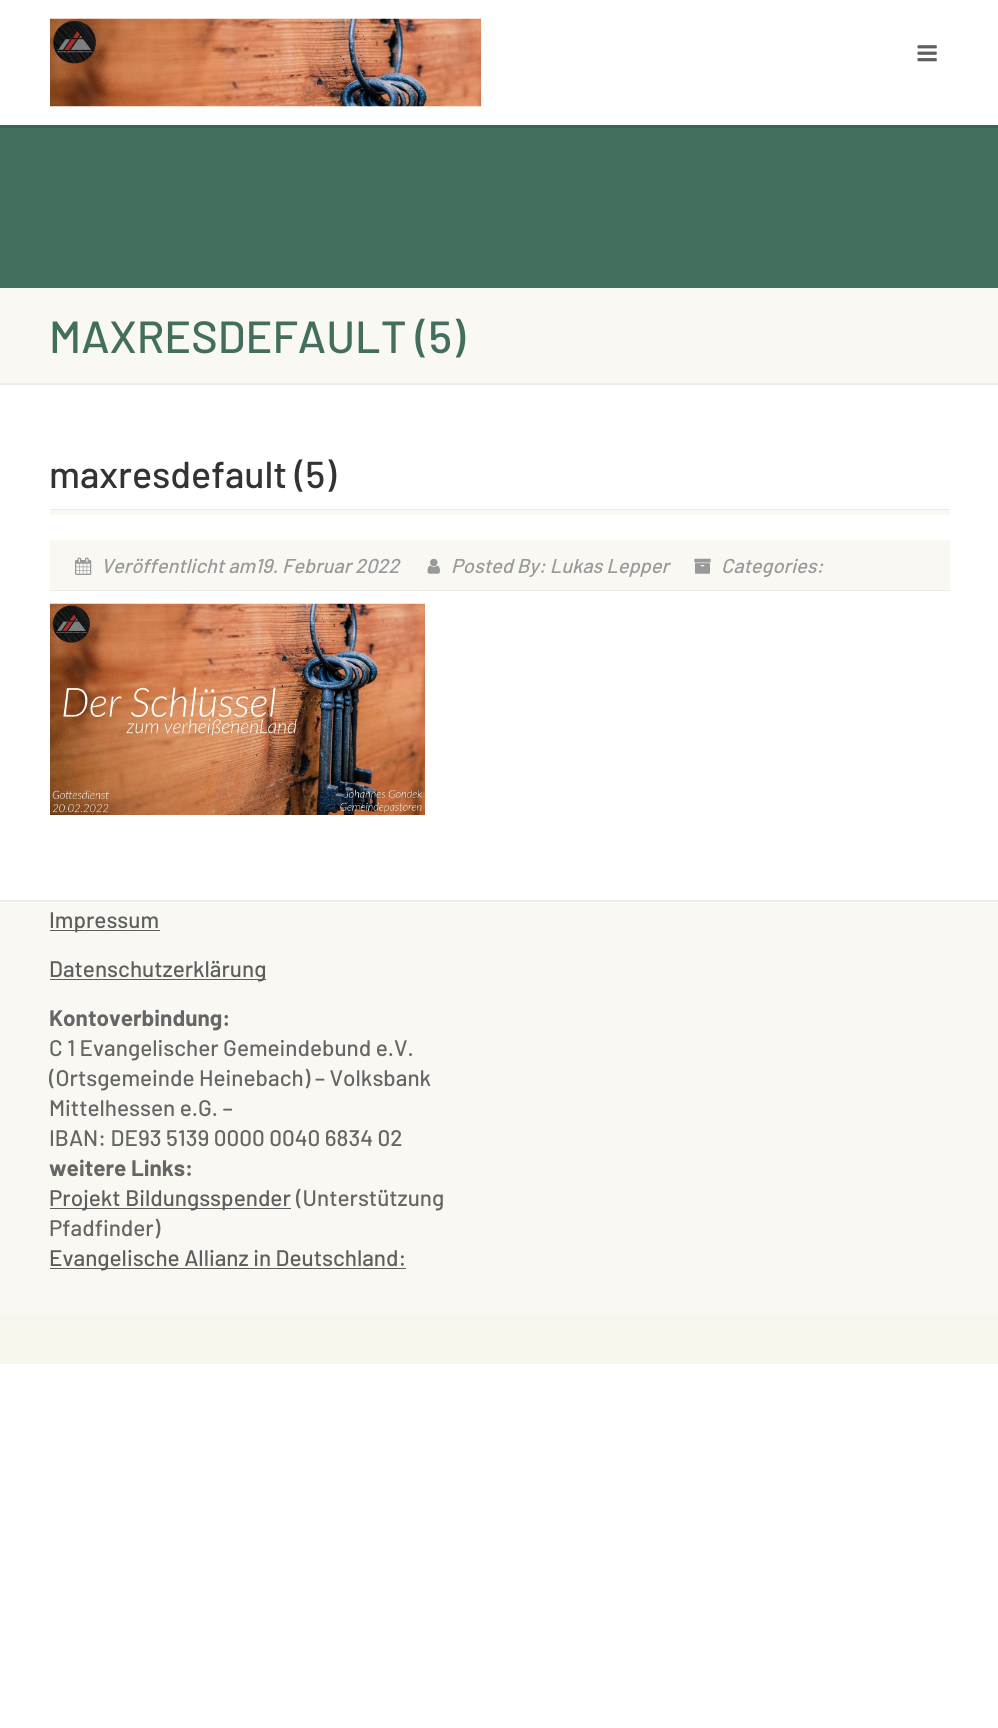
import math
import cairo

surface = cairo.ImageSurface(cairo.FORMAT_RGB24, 998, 1728)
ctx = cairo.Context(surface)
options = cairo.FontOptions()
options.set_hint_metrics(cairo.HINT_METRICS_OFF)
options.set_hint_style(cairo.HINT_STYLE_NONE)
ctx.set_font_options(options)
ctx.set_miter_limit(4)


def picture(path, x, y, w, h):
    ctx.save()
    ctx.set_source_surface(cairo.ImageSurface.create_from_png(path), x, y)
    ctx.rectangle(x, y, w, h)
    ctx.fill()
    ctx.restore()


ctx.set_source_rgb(1, 1, 1)
ctx.paint()
ctx.set_source_rgb(0.235, 0.388, 0.329)
ctx.new_path()
ctx.move_to(0, 125)
ctx.line_to(0, 128)
ctx.line_to(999, 128)
ctx.line_to(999, 3)
ctx.line_to(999, 125)
ctx.close_path()
ctx.fill()
picture("img1.png", 50, 18, 432, 89)
picture("img2.png", 917, 45, 20, 17)
ctx.set_source_rgb(0.263, 0.431, 0.365)
ctx.rectangle(0, 128, 998, 160)
ctx.fill()
ctx.set_source_rgb(0.929, 0.929, 0.929)
ctx.new_path()
ctx.move_to(0, 382)
ctx.line_to(0, 385)
ctx.line_to(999, 385)
ctx.line_to(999, 290)
ctx.line_to(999, 382)
ctx.close_path()
ctx.fill()
ctx.set_source_rgb(0.973, 0.969, 0.953)
ctx.rectangle(0, 288, 998, 95)
ctx.fill()
ctx.select_font_face("Barlow Medium")
ctx.set_font_size(45)
ctx.set_source_rgb(0.263, 0.431, 0.365)
ctx.move_to(49, 353)
ctx.show_text("MAXRESDEFAULT (5)")
ctx.set_source_rgb(0.925, 0.918, 0.894)
ctx.rectangle(50, 509, 900, 1)
ctx.fill()
ctx.set_font_size(37.5)
ctx.set_source_rgb(0.2, 0.2, 0.2)
ctx.move_to(49, 488)
ctx.show_text("maxresdefault (5)")
ctx.set_source_rgb(0.973, 0.969, 0.953)
ctx.rectangle(50, 510, 900, 5)
ctx.fill()
ctx.rectangle(50, 540, 900, 50)
ctx.fill()
ctx.set_source_rgb(0.925, 0.918, 0.894)
ctx.rectangle(50, 590, 900, 1)
ctx.fill()
picture("img3.png", 75, 557, 17, 18)
ctx.select_font_face("Barlow Medium", cairo.FONT_SLANT_ITALIC)
ctx.set_font_size(20)
ctx.set_source_rgb(0.6, 0.6, 0.6)
ctx.move_to(101, 573)
ctx.show_text("Veröffentlicht am19. Februar 2022")
picture("img4.png", 427, 558, 13, 16)
ctx.move_to(451, 573)
ctx.show_text("Posted By: Lukas Lepper")
picture("img5.png", 694, 558, 17, 16)
ctx.move_to(721, 573)
ctx.show_text("Categories:")
picture("img6.png", 50, 603, 375, 212)
ctx.set_source_rgb(0.929, 0.929, 0.929)
ctx.new_path()
ctx.move_to(0, 900)
ctx.line_to(0, 902)
ctx.line_to(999, 902)
ctx.line_to(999, 1310)
ctx.line_to(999, 900)
ctx.close_path()
ctx.fill()
ctx.set_source_rgb(0.973, 0.969, 0.953)
ctx.rectangle(0, 903, 998, 410)
ctx.fill()
ctx.set_source_rgb(0.369, 0.369, 0.369)
ctx.rectangle(50, 930, 110, 1)
ctx.fill()
ctx.select_font_face("Barlow Medium")
ctx.set_font_size(22.5)
ctx.move_to(49, 928)
ctx.show_text("Impressum")
ctx.rectangle(50, 979, 216, 1)
ctx.fill()
ctx.move_to(49, 977)
ctx.show_text("Datenschutzerklärung")
ctx.select_font_face("Barlow", cairo.FONT_SLANT_NORMAL, cairo.FONT_WEIGHT_BOLD)
ctx.set_source_rgb(0.4, 0.4, 0.4)
ctx.move_to(49, 1026)
ctx.show_text("Kontoverbindung:")
ctx.select_font_face("Barlow Medium")
ctx.move_to(49, 1056)
ctx.show_text("C 1 Evangelischer Gemeindebund e.V.")
ctx.move_to(49, 1086)
ctx.show_text("(Ortsgemeinde Heinebach) – Volksbank")
ctx.move_to(49, 1116)
ctx.show_text("Mittelhessen e.G. –")
ctx.move_to(49, 1146)
ctx.show_text("IBAN: DE93 5139 0000 0040 6834 02")
ctx.select_font_face("Barlow", cairo.FONT_SLANT_NORMAL, cairo.FONT_WEIGHT_BOLD)
ctx.move_to(49, 1176)
ctx.show_text("weitere Links:")
ctx.set_source_rgb(0.369, 0.369, 0.369)
ctx.rectangle(50, 1208, 241, 1)
ctx.fill()
ctx.select_font_face("Barlow Medium")
ctx.move_to(49, 1206)
ctx.show_text("Projekt Bildungsspender")
ctx.set_source_rgb(0.4, 0.4, 0.4)
ctx.move_to(296, 1206)
ctx.show_text("(Unterstützung")
ctx.move_to(49, 1236)
ctx.show_text("Pfadfinder)")
ctx.set_source_rgb(0.369, 0.369, 0.369)
ctx.rectangle(50, 1268, 356, 1)
ctx.fill()
ctx.move_to(49, 1266)
ctx.show_text("Evangelische Allianz in Deutschland:")
ctx.set_source_rgb(0.969, 0.961, 0.925)
ctx.rectangle(0, 1313, 998, 51)
ctx.fill()
surface.write_to_png("page.png")
